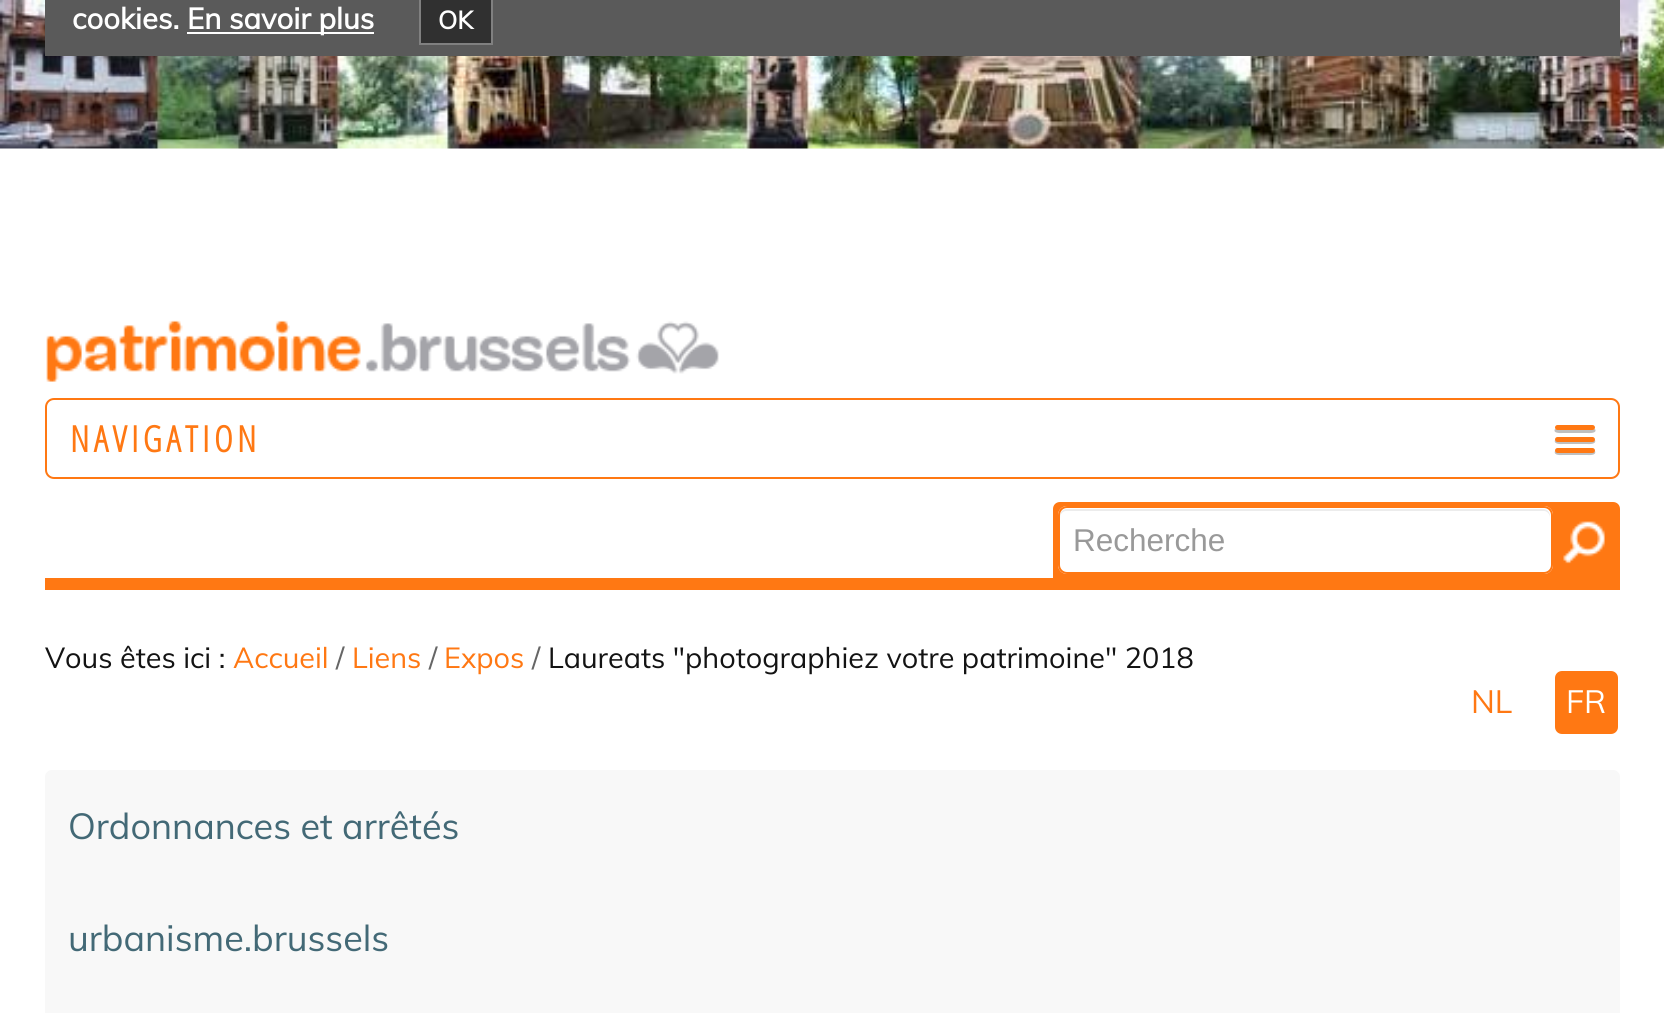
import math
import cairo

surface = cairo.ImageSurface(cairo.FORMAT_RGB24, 1664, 1013)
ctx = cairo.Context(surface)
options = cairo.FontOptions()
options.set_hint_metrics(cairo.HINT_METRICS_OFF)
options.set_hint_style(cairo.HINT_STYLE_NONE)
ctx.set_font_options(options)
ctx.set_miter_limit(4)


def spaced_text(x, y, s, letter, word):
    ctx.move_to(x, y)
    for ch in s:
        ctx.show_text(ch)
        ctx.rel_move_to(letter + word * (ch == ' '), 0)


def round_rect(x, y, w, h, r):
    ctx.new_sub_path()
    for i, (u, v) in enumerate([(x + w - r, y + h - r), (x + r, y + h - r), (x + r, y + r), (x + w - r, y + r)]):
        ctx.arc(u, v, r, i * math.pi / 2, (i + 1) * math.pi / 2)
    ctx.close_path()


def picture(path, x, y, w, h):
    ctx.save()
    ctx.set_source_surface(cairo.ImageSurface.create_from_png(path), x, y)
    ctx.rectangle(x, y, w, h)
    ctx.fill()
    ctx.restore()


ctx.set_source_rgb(1, 1, 1)
ctx.paint()
picture("img1.png", 0, 0, 1664, 149)
ctx.set_source_rgb(0.353, 0.353, 0.353)
ctx.rectangle(45, 0, 1575, 56)
ctx.fill()
ctx.select_font_face("Muli", cairo.FONT_SLANT_NORMAL, cairo.FONT_WEIGHT_BOLD)
ctx.set_font_size(29.25)
ctx.set_source_rgb(1, 1, 1)
ctx.move_to(72, 29)
ctx.show_text("cookies.")
ctx.rectangle(187, 32, 187, 2)
ctx.fill()
ctx.move_to(187, 29)
ctx.show_text("En savoir plus")
ctx.set_source_rgb(0.188, 0.188, 0.188)
ctx.rectangle(420, -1, 72, 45)
ctx.fill_preserve()
ctx.set_source_rgb(0.502, 0.502, 0.502)
ctx.stroke()
ctx.set_font_size(25)
ctx.set_source_rgb(1, 1, 1)
ctx.move_to(438, 29)
ctx.show_text("OK")
picture("img2.png", 46, 320, 673, 62)
round_rect(46, 399, 1573, 79, 8)
ctx.set_source_rgb(1, 0.471, 0.078)
ctx.stroke()
ctx.select_font_face("Open Sans Condensed", cairo.FONT_SLANT_NORMAL, cairo.FONT_WEIGHT_BOLD)
ctx.set_font_size(36)
spaced_text(70, 452, "NAVIGATION", 4.5, 0)
ctx.set_source_rgb(0.749, 0.749, 0.749)
ctx.new_path()
ctx.move_to(1555, 429)
ctx.curve_to(1552, 434, 1563, 433, 1563, 433)
ctx.line_to(1587, 433)
ctx.curve_to(1587, 433, 1598, 434, 1595, 429)
ctx.curve_to(1593, 430, 1557, 430, 1555, 429)
ctx.close_path()
ctx.fill()
ctx.set_source_rgb(1, 0.471, 0.078)
round_rect(1555, 425, 40, 5, 2.5)
ctx.fill()
ctx.set_source_rgb(0.749, 0.749, 0.749)
ctx.new_path()
ctx.move_to(1555, 440)
ctx.curve_to(1553, 445, 1563, 444, 1563, 444)
ctx.line_to(1587, 444)
ctx.curve_to(1587, 444, 1597, 445, 1595, 440)
ctx.curve_to(1593, 442, 1557, 442, 1555, 440)
ctx.close_path()
ctx.fill()
ctx.set_source_rgb(1, 0.471, 0.078)
round_rect(1555, 437, 40, 5, 2.5)
ctx.fill()
ctx.set_source_rgb(0.749, 0.749, 0.749)
ctx.new_path()
ctx.move_to(1555, 451)
ctx.curve_to(1553, 456, 1562, 455, 1563, 455)
ctx.line_to(1587, 455)
ctx.curve_to(1588, 455, 1597, 456, 1595, 451)
ctx.line_to(1593, 452)
ctx.line_to(1557, 452)
ctx.close_path()
ctx.fill()
ctx.set_source_rgb(1, 0.471, 0.078)
round_rect(1555, 448, 40, 5, 2.5)
ctx.fill()
ctx.new_path()
ctx.move_to(1060, 502)
ctx.line_to(1613, 502)
ctx.curve_to(1617, 502, 1620, 505, 1620, 509)
ctx.line_to(1620, 578)
ctx.line_to(1053, 578)
ctx.line_to(1053, 509)
ctx.curve_to(1053, 505, 1056, 502, 1060, 502)
ctx.close_path()
ctx.fill()
ctx.set_source_rgb(1, 1, 1)
round_rect(1058, 506, 495, 68, 9)
ctx.fill()
ctx.set_source_rgb(0.925, 0.925, 0.925)
ctx.new_path()
ctx.move_to(1066, 511)
ctx.line_to(1544, 511)
ctx.curve_to(1547, 511, 1550, 514, 1550, 518)
ctx.line_to(1550, 516)
ctx.curve_to(1550, 512, 1547, 509, 1543, 509)
ctx.line_to(1067, 509)
ctx.curve_to(1063, 509, 1060, 512, 1060, 516)
ctx.line_to(1060, 518)
ctx.curve_to(1060, 514, 1063, 511, 1066, 511)
ctx.close_path()
ctx.fill()
round_rect(1059, 507, 493, 66, 8)
ctx.set_source_rgb(1, 0.471, 0.078)
ctx.stroke()
ctx.select_font_face("Liberation Sans")
ctx.set_font_size(31.5)
ctx.set_source_rgb(0.6, 0.6, 0.6)
ctx.move_to(1073, 551)
ctx.show_text("Recherche")
picture("img3.png", 1563, 521, 42, 43)
ctx.set_source_rgb(1, 0.471, 0.078)
ctx.rectangle(45, 578, 1575, 12)
ctx.fill()
ctx.select_font_face("Muli")
ctx.set_font_size(28.8)
ctx.set_source_rgb(0.078, 0.078, 0.078)
ctx.move_to(45, 668)
ctx.show_text("Vous êtes ici :")
ctx.set_source_rgb(1, 0.471, 0.078)
ctx.move_to(233, 668)
ctx.show_text("Accueil")
ctx.set_source_rgb(0.4, 0.4, 0.4)
ctx.move_to(336, 668)
ctx.show_text("/")
ctx.set_source_rgb(1, 0.471, 0.078)
ctx.move_to(352, 668)
ctx.show_text("Liens")
ctx.set_source_rgb(0.4, 0.4, 0.4)
ctx.move_to(429, 668)
ctx.show_text("/")
ctx.set_source_rgb(1, 0.471, 0.078)
ctx.move_to(444, 668)
ctx.show_text("Expos")
ctx.set_source_rgb(0.4, 0.4, 0.4)
ctx.move_to(532, 668)
ctx.show_text("/")
ctx.set_source_rgb(0.078, 0.078, 0.078)
ctx.move_to(548, 668)
ctx.show_text("Laureats \"photographiez votre patrimoine\" 2018")
ctx.set_font_size(32)
ctx.set_source_rgb(1, 0.471, 0.078)
ctx.move_to(1471, 713)
ctx.show_text("NL")
round_rect(1555, 671, 63, 63, 7)
ctx.fill()
ctx.set_source_rgb(1, 1, 1)
ctx.move_to(1566, 713)
ctx.show_text("FR")
ctx.set_source_rgb(0.969, 0.969, 0.969)
round_rect(45, 770, 1575, 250, 7)
ctx.fill()
ctx.set_font_size(36)
ctx.set_source_rgb(0.263, 0.412, 0.463)
ctx.move_to(68, 839)
ctx.show_text("Ordonnances et arrêtés")
ctx.move_to(68, 951)
ctx.show_text("urbanisme.brussels")
surface.write_to_png("page.png")
